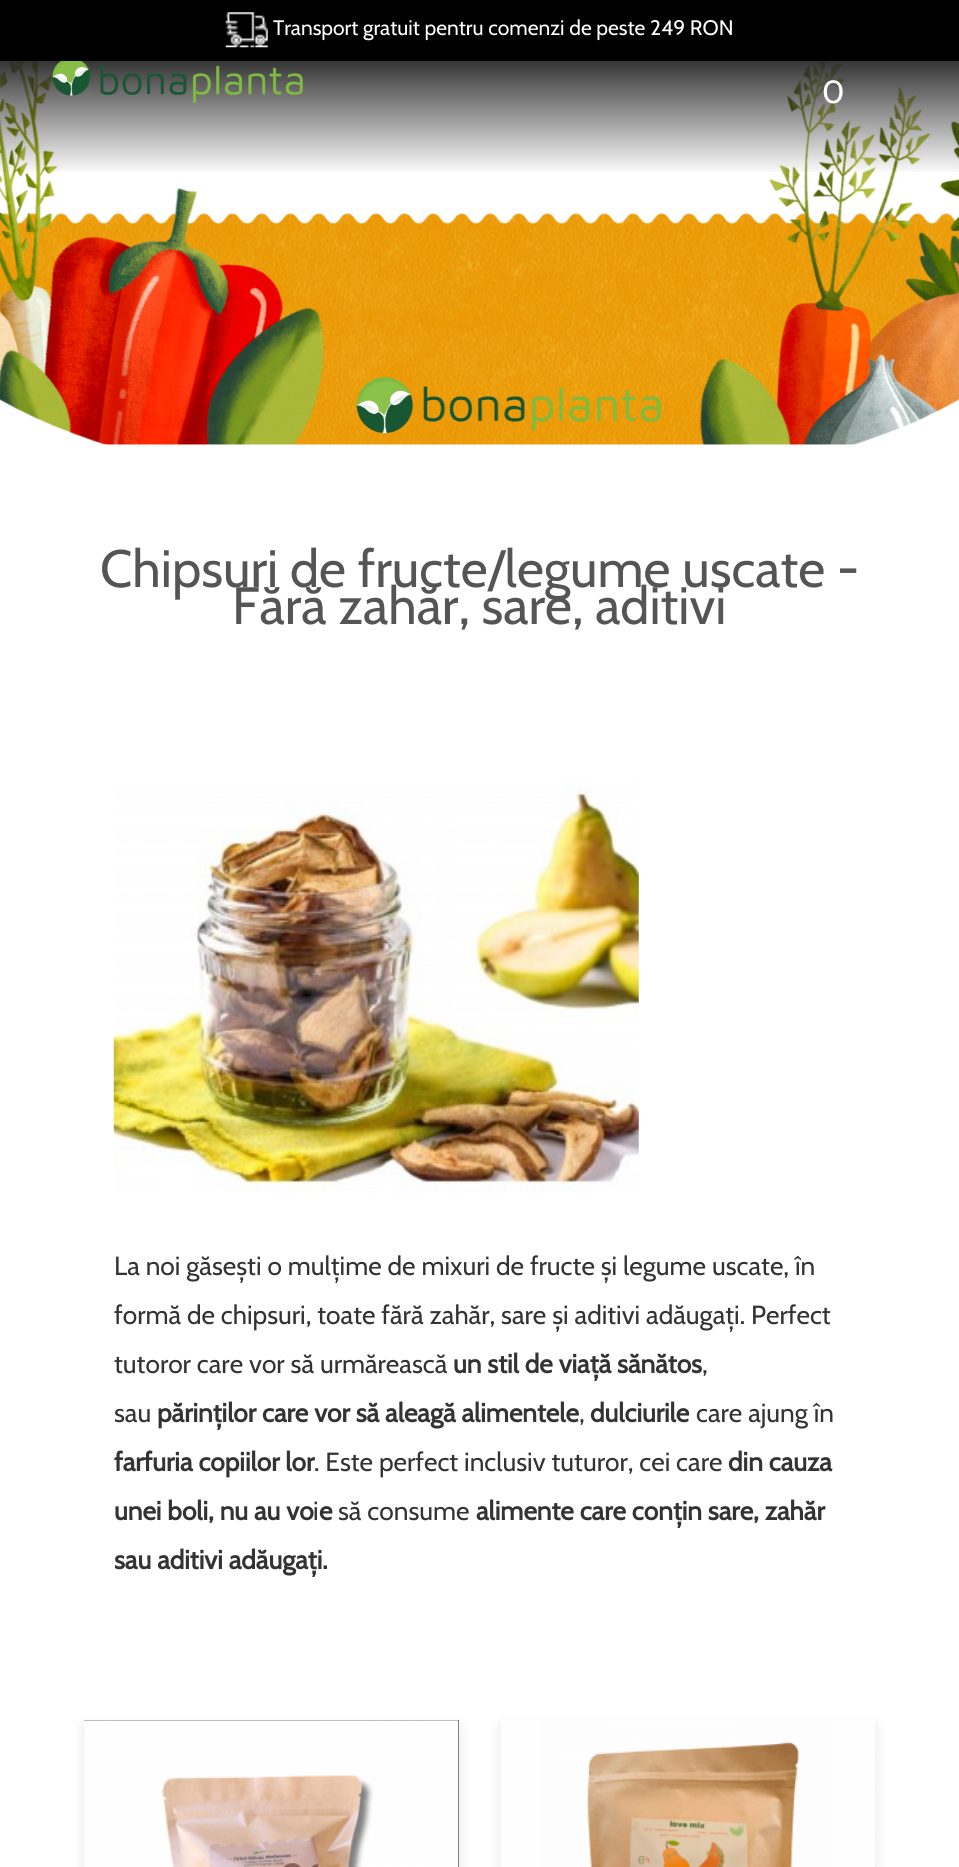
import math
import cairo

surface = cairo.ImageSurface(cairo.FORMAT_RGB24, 959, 1867)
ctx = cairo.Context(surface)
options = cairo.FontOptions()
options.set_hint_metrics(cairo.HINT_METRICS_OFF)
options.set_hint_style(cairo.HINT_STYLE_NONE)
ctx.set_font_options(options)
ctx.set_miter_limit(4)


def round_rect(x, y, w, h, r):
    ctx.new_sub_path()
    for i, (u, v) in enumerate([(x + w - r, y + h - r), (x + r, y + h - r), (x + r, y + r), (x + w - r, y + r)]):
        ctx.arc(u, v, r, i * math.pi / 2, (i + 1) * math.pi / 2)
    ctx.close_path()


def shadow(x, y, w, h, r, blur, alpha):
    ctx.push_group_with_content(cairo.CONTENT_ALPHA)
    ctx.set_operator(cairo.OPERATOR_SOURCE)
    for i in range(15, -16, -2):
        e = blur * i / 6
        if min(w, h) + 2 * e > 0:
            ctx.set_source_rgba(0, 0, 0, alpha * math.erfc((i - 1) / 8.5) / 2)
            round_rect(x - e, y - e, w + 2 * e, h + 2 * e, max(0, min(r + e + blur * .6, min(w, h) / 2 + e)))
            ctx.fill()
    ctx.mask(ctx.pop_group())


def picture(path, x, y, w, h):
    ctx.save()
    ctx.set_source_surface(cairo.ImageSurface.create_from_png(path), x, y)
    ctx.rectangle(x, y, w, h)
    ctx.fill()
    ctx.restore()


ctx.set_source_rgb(1, 1, 1)
ctx.paint()
ctx.set_source_rgb(0, 0, 0)
ctx.rectangle(0, 0, 959, 61)
ctx.fill()
picture("img1.png", 225, 12, 43, 36)
ctx.select_font_face("Cabin")
ctx.set_font_size(21)
ctx.set_source_rgb(1, 1, 1)
ctx.move_to(273, 35)
ctx.show_text("Transport gratuit pentru comenzi de peste 249 RON")
picture("img3.png", 0, 61, 959, 384)
gradient = cairo.LinearGradient(480, 175, 480, 53)
gradient.add_color_stop_rgba(0, 0.153, 0.153, 0.153, 0)
gradient.add_color_stop_rgba(1, 0.153, 0.153, 0.153, 1)
ctx.set_source(gradient)
ctx.rectangle(0, 61, 959, 111)
ctx.fill()
picture("img2.png", 52, 61, 251, 42)
ctx.set_font_size(32)
ctx.set_source_rgb(1, 1, 1)
ctx.move_to(822, 103)
ctx.show_text("0")
ctx.set_font_size(52.5)
ctx.set_source_rgb(0.333, 0.333, 0.333)
ctx.move_to(100, 587)
ctx.show_text("Chipsuri de fructe/legume uscate -")
ctx.move_to(232, 624)
ctx.show_text("Fără zahăr, sare, aditivi")
picture("img4.png", 113, 779, 526, 414)
ctx.set_font_size(26.25)
ctx.set_source_rgb(0.2, 0.2, 0.2)
ctx.move_to(114, 1275)
ctx.show_text("La noi găsești o mulțime de mixuri de fructe și legume uscate, în")
ctx.move_to(114, 1324)
ctx.show_text("formă de chipsuri, toate fără zahăr, sare și aditivi adăugați. Perfect")
ctx.move_to(114, 1373)
ctx.show_text("tutoror care vor să urmărească")
ctx.select_font_face("Cabin", cairo.FONT_SLANT_NORMAL, cairo.FONT_WEIGHT_BOLD)
ctx.move_to(453, 1373)
ctx.show_text("un stil de viață sănătos")
ctx.select_font_face("Cabin")
ctx.move_to(702, 1373)
ctx.show_text(",")
ctx.move_to(114, 1422)
ctx.show_text("sau")
ctx.select_font_face("Cabin", cairo.FONT_SLANT_NORMAL, cairo.FONT_WEIGHT_BOLD)
ctx.move_to(157, 1422)
ctx.show_text("părinților care vor să aleagă alimentele")
ctx.select_font_face("Cabin")
ctx.move_to(579, 1422)
ctx.show_text(",")
ctx.select_font_face("Cabin", cairo.FONT_SLANT_NORMAL, cairo.FONT_WEIGHT_BOLD)
ctx.move_to(590, 1422)
ctx.show_text("dulciurile")
ctx.select_font_face("Cabin")
ctx.move_to(696, 1422)
ctx.show_text("care ajung în")
ctx.select_font_face("Cabin", cairo.FONT_SLANT_NORMAL, cairo.FONT_WEIGHT_BOLD)
ctx.move_to(114, 1471)
ctx.show_text("farfuria copiilor lor")
ctx.select_font_face("Cabin")
ctx.move_to(314, 1471)
ctx.show_text(". Este perfect inclusiv tuturor, cei care")
ctx.select_font_face("Cabin", cairo.FONT_SLANT_NORMAL, cairo.FONT_WEIGHT_BOLD)
ctx.move_to(728, 1471)
ctx.show_text("din cauza")
ctx.move_to(114, 1520)
ctx.show_text("unei boli, nu au vo")
ctx.select_font_face("Cabin")
ctx.move_to(313, 1520)
ctx.show_text("i")
ctx.select_font_face("Cabin", cairo.FONT_SLANT_NORMAL, cairo.FONT_WEIGHT_BOLD)
ctx.move_to(319, 1520)
ctx.show_text("e")
ctx.select_font_face("Cabin")
ctx.move_to(338, 1520)
ctx.show_text("să consume")
ctx.select_font_face("Cabin", cairo.FONT_SLANT_NORMAL, cairo.FONT_WEIGHT_BOLD)
ctx.move_to(476, 1520)
ctx.show_text("alimente care conțin sare, zahăr")
ctx.move_to(114, 1569)
ctx.show_text("sau aditivi adăugați.")
ctx.set_source_rgb(0.671, 0.671, 0.671)
shadow(84, 1726, 375, 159, 0, 6, 0.3)
ctx.set_source_rgb(0, 0, 0)
ctx.rectangle(84, 1720, 375, 147)
ctx.fill()
picture("img5.png", 84, 1720, 375, 147)
ctx.set_source_rgb(0.671, 0.671, 0.671)
shadow(501, 1726, 374, 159, 0, 6, 0.3)
picture("img6.png", 501, 1720, 374, 147)
surface.write_to_png("page.png")
